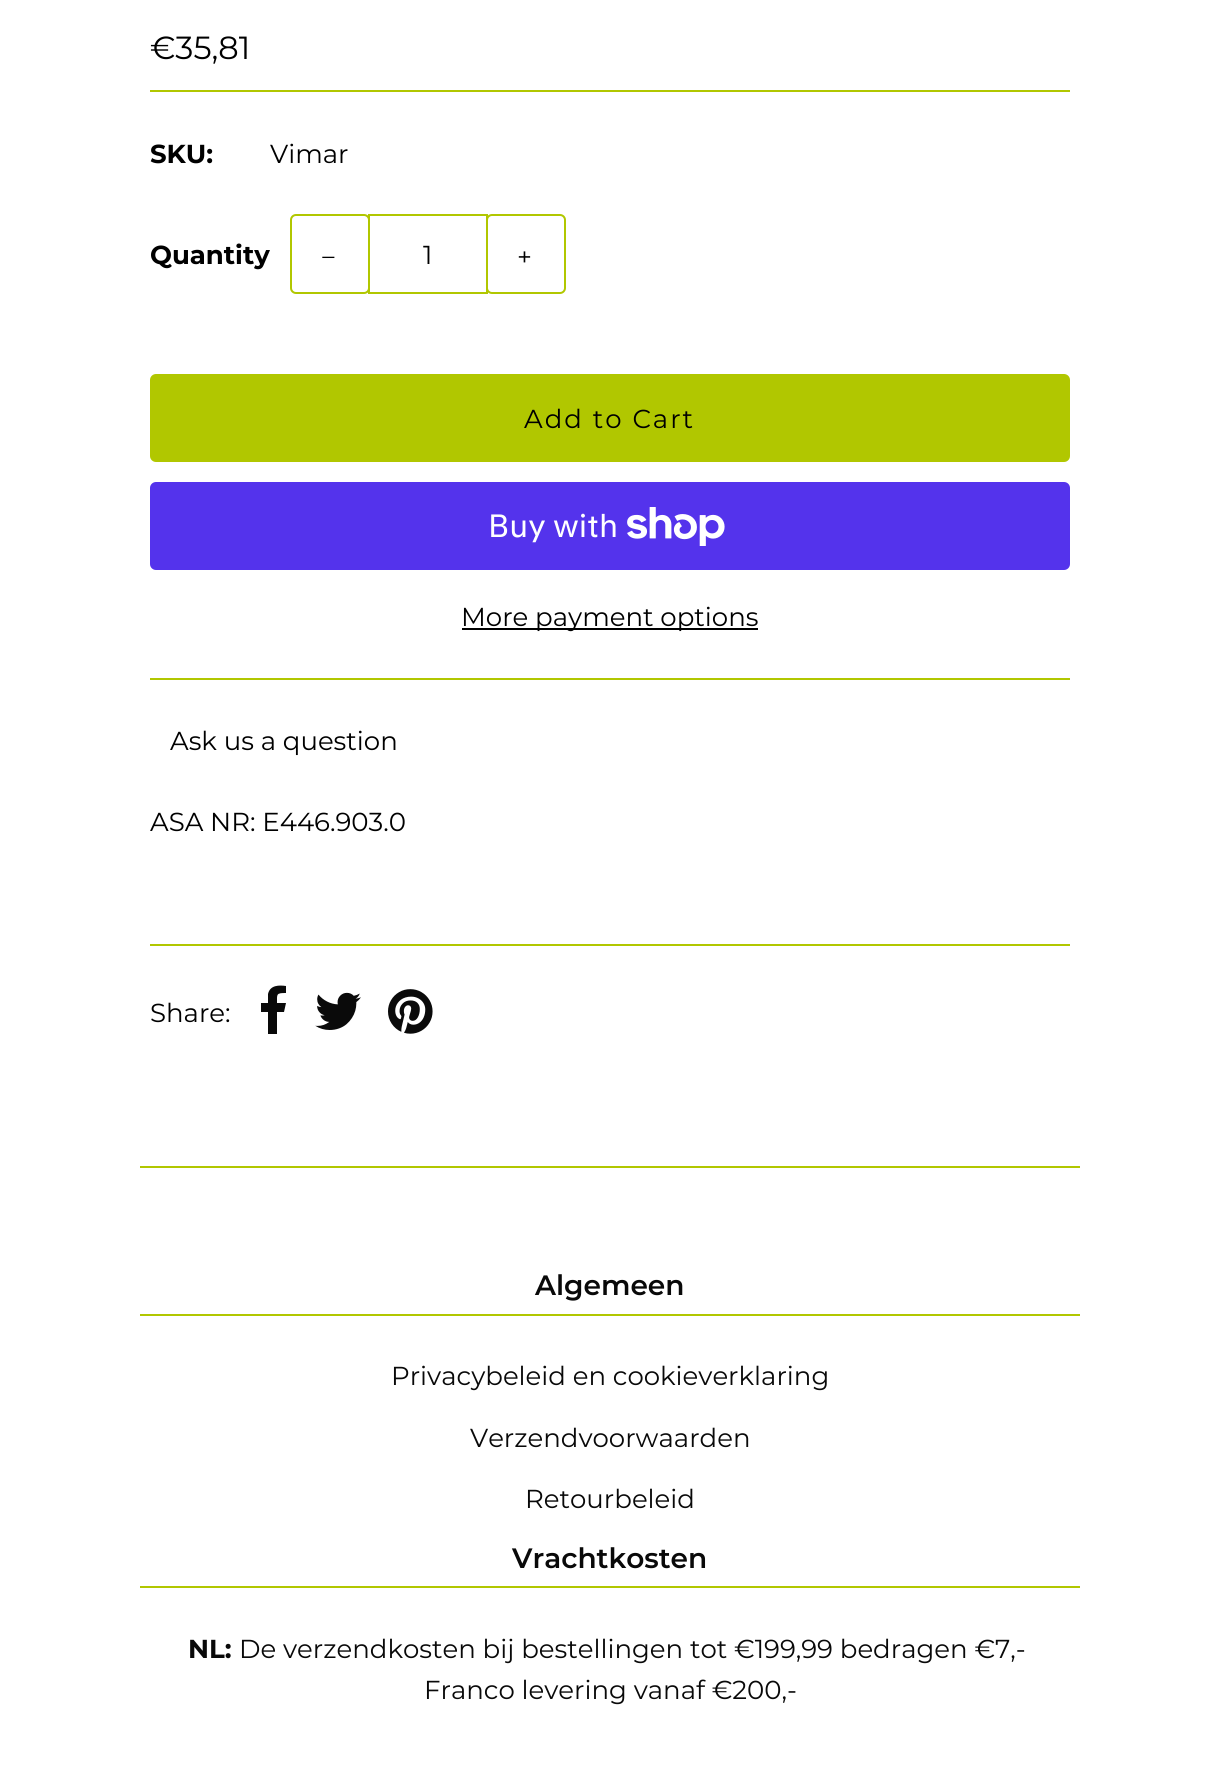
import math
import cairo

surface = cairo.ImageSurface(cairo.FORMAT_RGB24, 1219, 1765)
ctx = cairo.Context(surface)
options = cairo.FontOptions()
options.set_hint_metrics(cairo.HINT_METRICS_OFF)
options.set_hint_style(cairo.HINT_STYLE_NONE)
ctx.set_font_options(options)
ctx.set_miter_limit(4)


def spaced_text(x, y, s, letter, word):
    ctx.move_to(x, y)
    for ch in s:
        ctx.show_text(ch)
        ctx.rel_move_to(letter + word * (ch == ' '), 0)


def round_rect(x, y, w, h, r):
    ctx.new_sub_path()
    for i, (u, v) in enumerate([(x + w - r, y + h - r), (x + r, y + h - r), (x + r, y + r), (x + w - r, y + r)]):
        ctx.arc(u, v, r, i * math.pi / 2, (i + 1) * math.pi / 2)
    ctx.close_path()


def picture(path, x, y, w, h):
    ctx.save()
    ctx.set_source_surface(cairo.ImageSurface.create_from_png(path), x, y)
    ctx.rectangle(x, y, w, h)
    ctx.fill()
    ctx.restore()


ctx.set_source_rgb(1, 1, 1)
ctx.paint()
ctx.set_source_rgb(0.694, 0.78, 0)
ctx.rectangle(150, 678, 920, 2)
ctx.fill()
ctx.rectangle(150, 90, 920, 2)
ctx.fill()
ctx.select_font_face("Montserrat")
ctx.set_font_size(32)
ctx.set_source_rgb(0, 0, 0)
ctx.move_to(150, 59)
ctx.show_text("€35,81")
ctx.select_font_face("Montserrat", cairo.FONT_SLANT_NORMAL, cairo.FONT_WEIGHT_BOLD)
ctx.set_font_size(26)
ctx.move_to(150, 163)
ctx.show_text("SKU:")
ctx.select_font_face("Montserrat")
ctx.move_to(270, 163)
ctx.show_text("Vimar")
ctx.select_font_face("Montserrat", cairo.FONT_SLANT_NORMAL, cairo.FONT_WEIGHT_BOLD)
ctx.move_to(150, 264)
ctx.show_text("Quantity")
round_rect(291, 215, 78, 78, 5)
ctx.set_source_rgb(0.694, 0.78, 0)
ctx.stroke()
ctx.select_font_face("Liberation Serif")
ctx.set_source_rgb(0, 0, 0)
spaced_text(321, 266, "−", 2, 0)
ctx.rectangle(369, 215, 118, 78)
ctx.set_source_rgb(0.694, 0.78, 0)
ctx.stroke()
ctx.select_font_face("Montserrat")
ctx.set_source_rgb(0, 0, 0)
ctx.move_to(423, 264)
ctx.show_text("1")
round_rect(487, 215, 78, 78, 5)
ctx.set_source_rgb(0.694, 0.78, 0)
ctx.stroke()
ctx.set_source_rgb(0, 0, 0)
spaced_text(517, 266, "+", 2, 0)
ctx.set_source_rgb(0.694, 0.78, 0)
round_rect(150, 374, 920, 88, 6)
ctx.fill()
ctx.set_source_rgb(0, 0, 0)
spaced_text(524, 428, "Add to Cart", 2, 0)
ctx.set_source_rgb(0.329, 0.2, 0.922)
round_rect(150, 482, 920, 88, 6)
ctx.fill()
ctx.select_font_face("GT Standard")
ctx.set_font_size(32)
ctx.set_source_rgb(1, 1, 1)
ctx.move_to(488, 537)
ctx.show_text("Buy with")
picture("img1.png", 627, 507, 98, 39)
ctx.set_source_rgb(0, 0, 0)
ctx.rectangle(462, 628, 296, 2)
ctx.fill()
ctx.select_font_face("Montserrat")
ctx.set_font_size(26)
ctx.move_to(461, 626)
ctx.show_text("More payment options")
ctx.move_to(170, 750)
ctx.show_text("Ask us a question")
ctx.move_to(150, 831)
ctx.show_text("ASA NR: E446.903.0")
ctx.set_source_rgb(0.694, 0.78, 0)
ctx.rectangle(150, 944, 920, 2)
ctx.fill()
ctx.set_source_rgb(0, 0, 0)
ctx.move_to(150, 1022)
ctx.show_text("Share:")
ctx.set_source_rgb(0.039, 0.039, 0.039)
ctx.new_path()
ctx.move_to(286, 986)
ctx.line_to(286, 993)
ctx.curve_to(276, 993, 277, 994, 277, 1003)
ctx.line_to(286, 1003)
ctx.line_to(284, 1012)
ctx.line_to(277, 1012)
ctx.line_to(277, 1034)
ctx.line_to(268, 1034)
ctx.line_to(268, 1012)
ctx.line_to(261, 1012)
ctx.line_to(261, 1003)
ctx.line_to(268, 1003)
ctx.line_to(268, 994)
ctx.curve_to(270, 985, 279, 985, 286, 986)
ctx.close_path()
ctx.fill()
picture("img2.png", 315, 992, 46, 38)
picture("img3.png", 388, 989, 45, 45)
ctx.set_source_rgb(0.694, 0.78, 0)
ctx.rectangle(140, 1166, 940, 2)
ctx.fill()
ctx.rectangle(140, 1314, 940, 2)
ctx.fill()
ctx.select_font_face("Montserrat SemiBold")
ctx.set_font_size(28)
ctx.set_source_rgb(0.039, 0.039, 0.039)
ctx.move_to(535, 1295)
ctx.show_text("Algemeen")
ctx.select_font_face("Montserrat")
ctx.set_font_size(26)
ctx.move_to(391, 1385)
ctx.show_text("Privacybeleid en cookieverklaring")
ctx.move_to(470, 1447)
ctx.show_text("Verzendvoorwaarden")
ctx.move_to(525, 1508)
ctx.show_text("Retourbeleid")
ctx.set_source_rgb(0.694, 0.78, 0)
ctx.rectangle(140, 1586, 940, 2)
ctx.fill()
ctx.select_font_face("Montserrat SemiBold")
ctx.set_font_size(28)
ctx.set_source_rgb(0.039, 0.039, 0.039)
ctx.move_to(512, 1568)
ctx.show_text("Vrachtkosten")
ctx.select_font_face("Montserrat", cairo.FONT_SLANT_NORMAL, cairo.FONT_WEIGHT_BOLD)
ctx.set_font_size(26)
ctx.move_to(188, 1658)
ctx.show_text("NL:")
ctx.select_font_face("Montserrat")
ctx.move_to(239, 1658)
ctx.show_text("De verzendkosten bij bestellingen tot €199,99 bedragen €7,-")
ctx.move_to(424, 1699)
ctx.show_text("Franco levering vanaf €200,-")
surface.write_to_png("page.png")
